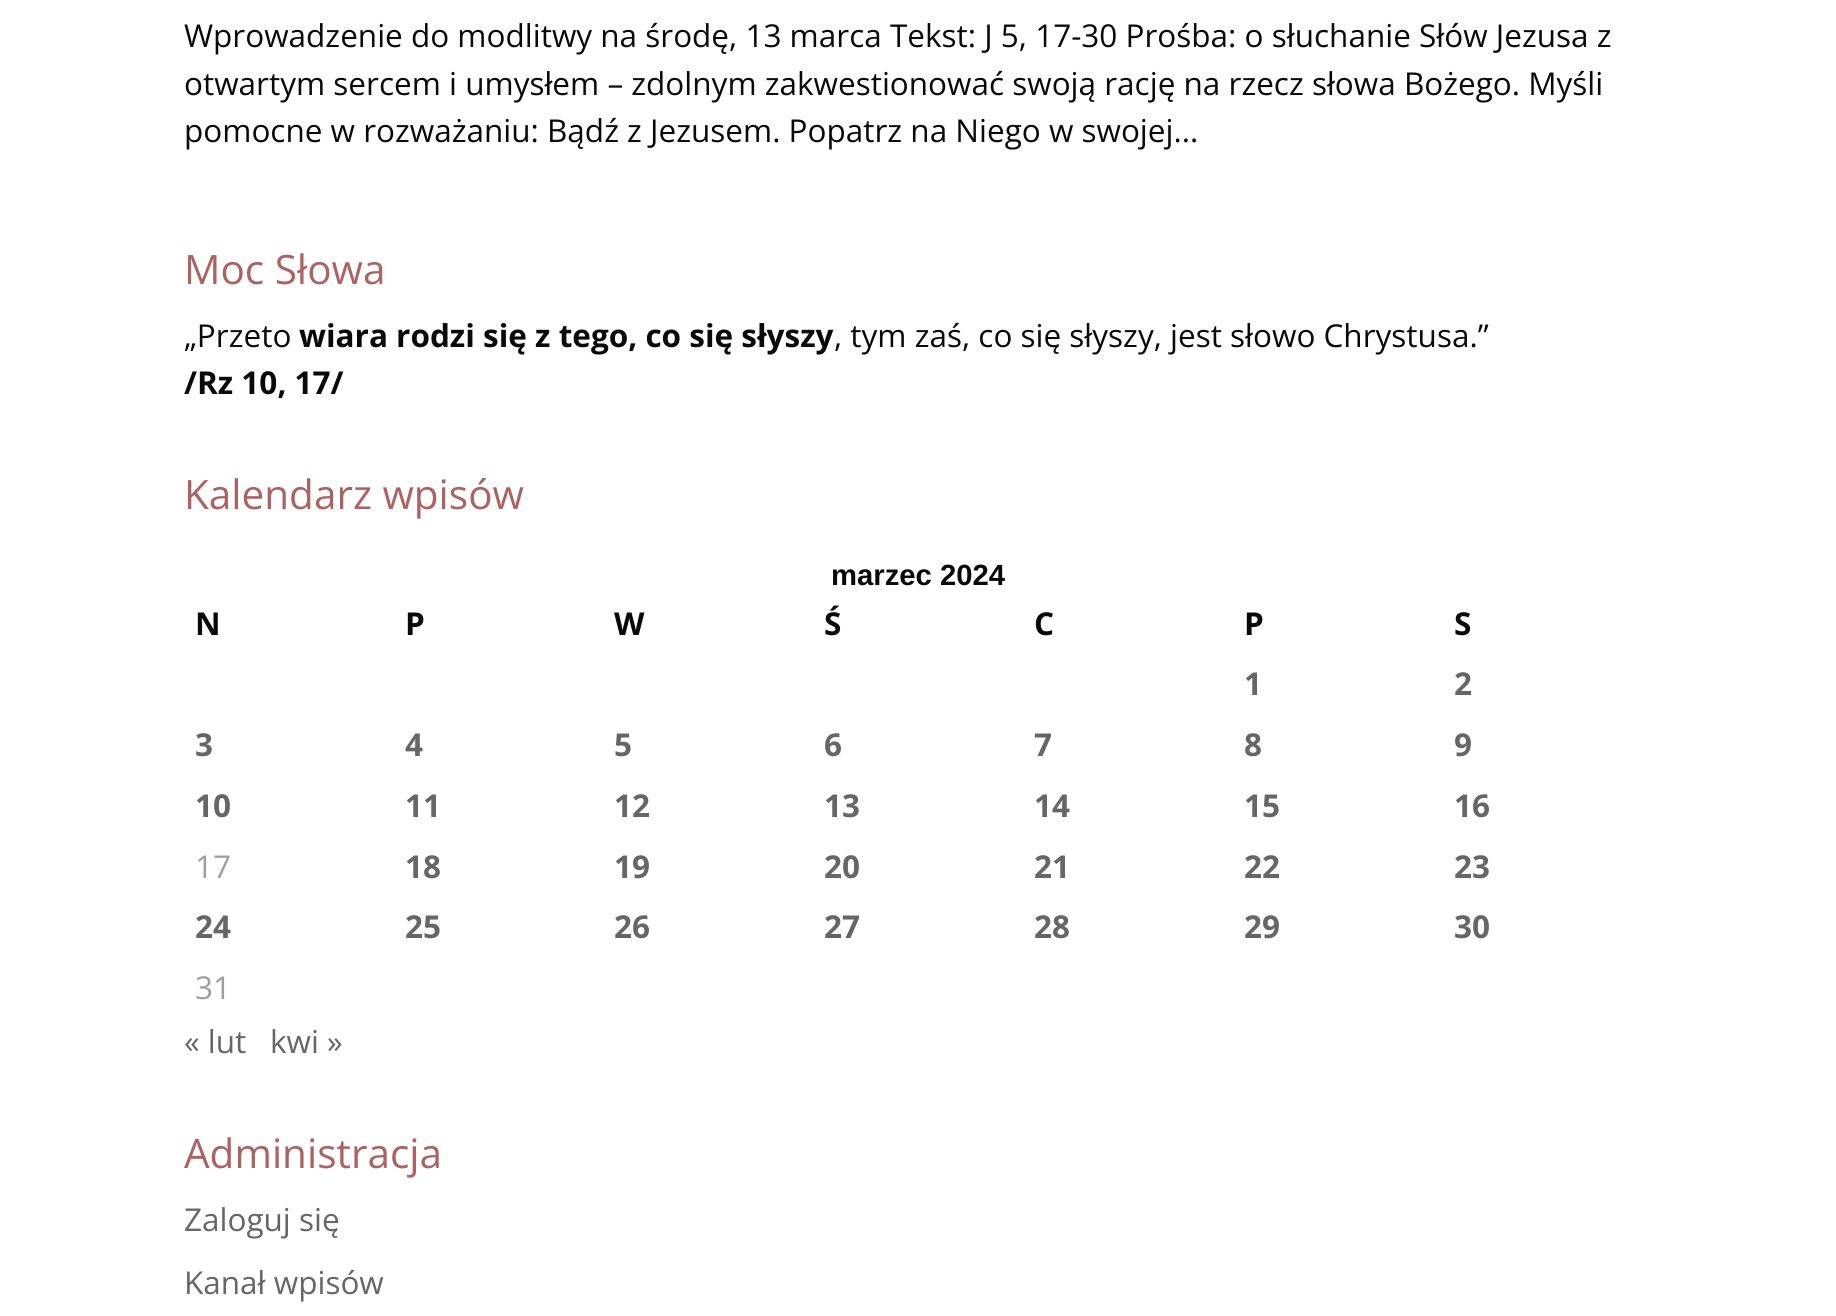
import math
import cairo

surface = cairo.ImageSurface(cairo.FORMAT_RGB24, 1836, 1316)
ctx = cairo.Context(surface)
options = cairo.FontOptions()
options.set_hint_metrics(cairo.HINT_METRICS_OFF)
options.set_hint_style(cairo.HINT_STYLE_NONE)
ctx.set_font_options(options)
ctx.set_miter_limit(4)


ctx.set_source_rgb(1, 1, 1)
ctx.paint()
ctx.select_font_face("Open Sans")
ctx.set_font_size(31.5)
ctx.set_source_rgb(0.039, 0.039, 0.039)
ctx.move_to(184, 47)
ctx.show_text("Wprowadzenie do modlitwy na środę, 13 marca Tekst: J 5, 17-30 Prośba: o słuchanie Słów Jezusa z")
ctx.move_to(184, 95)
ctx.show_text("otwartym sercem i umysłem – zdolnym zakwestionować swoją rację na rzecz słowa Bożego. Myśli")
ctx.move_to(184, 142)
ctx.show_text("pomocne w rozważaniu: Bądź z Jezusem. Popatrz na Niego w swojej...")
ctx.set_font_size(40.5)
ctx.set_source_rgb(0.678, 0.384, 0.384)
ctx.move_to(184, 284)
ctx.show_text("Moc Słowa")
ctx.set_font_size(31.5)
ctx.set_source_rgb(0.039, 0.039, 0.039)
ctx.move_to(184, 347)
ctx.show_text("„Przeto")
ctx.select_font_face("Open Sans", cairo.FONT_SLANT_NORMAL, cairo.FONT_WEIGHT_BOLD)
ctx.move_to(299, 347)
ctx.show_text("wiara rodzi się z tego, co się słyszy")
ctx.select_font_face("Open Sans")
ctx.move_to(834, 347)
ctx.show_text(", tym zaś, co się słyszy, jest słowo Chrystusa.”")
ctx.select_font_face("Open Sans", cairo.FONT_SLANT_NORMAL, cairo.FONT_WEIGHT_BOLD)
ctx.move_to(184, 394)
ctx.show_text("/Rz 10, 17/")
ctx.select_font_face("Open Sans")
ctx.set_font_size(40.5)
ctx.set_source_rgb(0.678, 0.384, 0.384)
ctx.move_to(184, 509)
ctx.show_text("Kalendarz wpisów")
ctx.select_font_face("Liberation Sans", cairo.FONT_SLANT_NORMAL, cairo.FONT_WEIGHT_BOLD)
ctx.set_font_size(29.25)
ctx.set_source_rgb(0.039, 0.039, 0.039)
ctx.move_to(831, 585)
ctx.show_text("marzec 2024")
ctx.select_font_face("Open Sans", cairo.FONT_SLANT_NORMAL, cairo.FONT_WEIGHT_BOLD)
ctx.set_font_size(31.5)
ctx.move_to(195, 635)
ctx.show_text("N")
ctx.move_to(405, 635)
ctx.show_text("P")
ctx.move_to(614, 635)
ctx.show_text("W")
ctx.move_to(824, 635)
ctx.show_text("Ś")
ctx.move_to(1034, 635)
ctx.show_text("C")
ctx.move_to(1244, 635)
ctx.show_text("P")
ctx.move_to(1454, 635)
ctx.show_text("S")
ctx.set_source_rgb(0.4, 0.4, 0.4)
ctx.move_to(1244, 695)
ctx.show_text("1")
ctx.move_to(1454, 695)
ctx.show_text("2")
ctx.move_to(195, 756)
ctx.show_text("3")
ctx.move_to(405, 756)
ctx.show_text("4")
ctx.move_to(614, 756)
ctx.show_text("5")
ctx.move_to(824, 756)
ctx.show_text("6")
ctx.move_to(1034, 756)
ctx.show_text("7")
ctx.move_to(1244, 756)
ctx.show_text("8")
ctx.move_to(1454, 756)
ctx.show_text("9")
ctx.move_to(195, 817)
ctx.show_text("10")
ctx.move_to(405, 817)
ctx.show_text("11")
ctx.move_to(614, 817)
ctx.show_text("12")
ctx.move_to(824, 817)
ctx.show_text("13")
ctx.move_to(1034, 817)
ctx.show_text("14")
ctx.move_to(1244, 817)
ctx.show_text("15")
ctx.move_to(1454, 817)
ctx.show_text("16")
ctx.select_font_face("Open Sans")
ctx.set_source_rgb(0.624, 0.624, 0.624)
ctx.move_to(195, 878)
ctx.show_text("17")
ctx.select_font_face("Open Sans", cairo.FONT_SLANT_NORMAL, cairo.FONT_WEIGHT_BOLD)
ctx.set_source_rgb(0.4, 0.4, 0.4)
ctx.move_to(405, 878)
ctx.show_text("18")
ctx.move_to(614, 878)
ctx.show_text("19")
ctx.move_to(824, 878)
ctx.show_text("20")
ctx.move_to(1034, 878)
ctx.show_text("21")
ctx.move_to(1244, 878)
ctx.show_text("22")
ctx.move_to(1454, 878)
ctx.show_text("23")
ctx.move_to(195, 938)
ctx.show_text("24")
ctx.move_to(405, 938)
ctx.show_text("25")
ctx.move_to(614, 938)
ctx.show_text("26")
ctx.move_to(824, 938)
ctx.show_text("27")
ctx.move_to(1034, 938)
ctx.show_text("28")
ctx.move_to(1244, 938)
ctx.show_text("29")
ctx.move_to(1454, 938)
ctx.show_text("30")
ctx.select_font_face("Open Sans")
ctx.set_source_rgb(0.624, 0.624, 0.624)
ctx.move_to(195, 999)
ctx.show_text("31")
ctx.set_source_rgb(0.4, 0.4, 0.4)
ctx.move_to(184, 1053)
ctx.show_text("« lut")
ctx.move_to(270, 1053)
ctx.show_text("kwi »")
ctx.set_font_size(40.5)
ctx.set_source_rgb(0.678, 0.384, 0.384)
ctx.move_to(184, 1168)
ctx.show_text("Administracja")
ctx.set_font_size(31.5)
ctx.set_source_rgb(0.4, 0.4, 0.4)
ctx.move_to(184, 1231)
ctx.show_text("Zaloguj się")
ctx.move_to(184, 1294)
ctx.show_text("Kanał wpisów")
surface.write_to_png("page.png")
